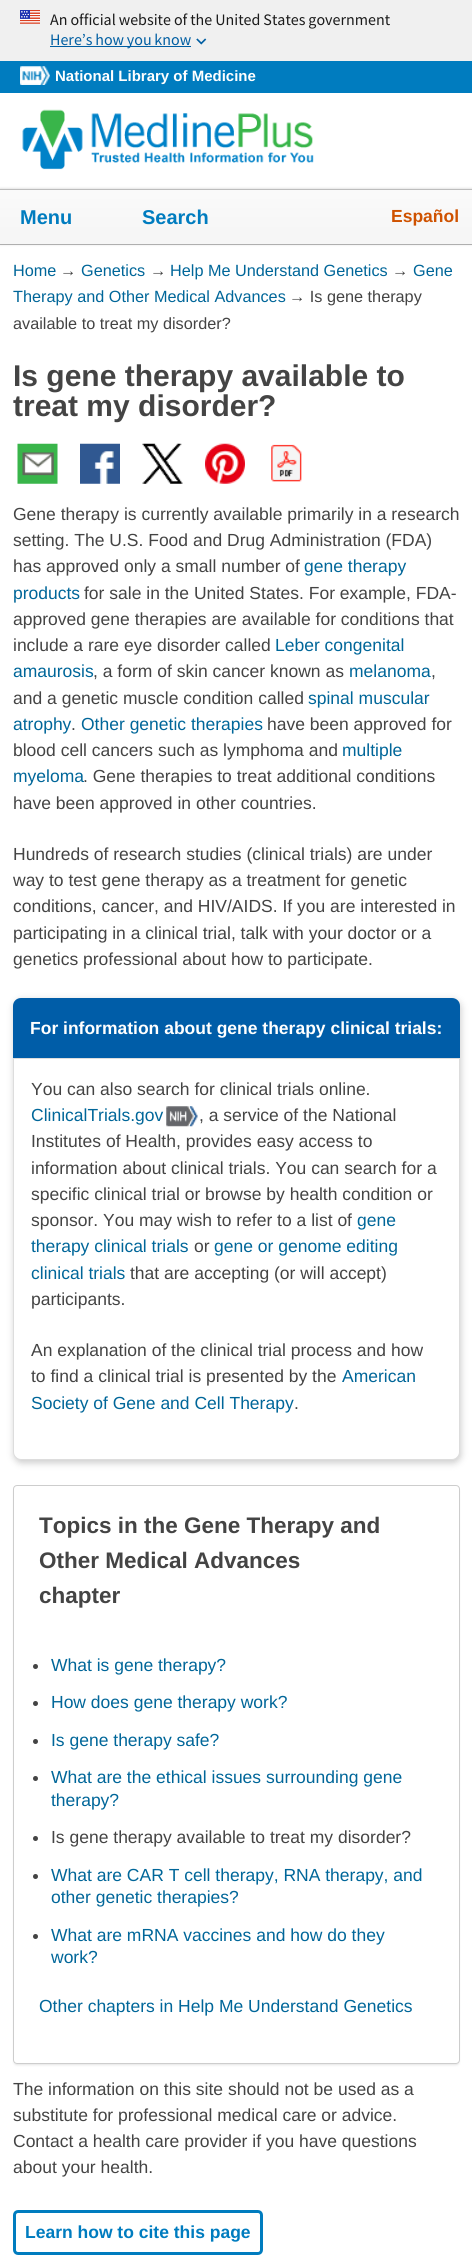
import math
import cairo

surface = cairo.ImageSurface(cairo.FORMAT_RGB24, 472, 2260)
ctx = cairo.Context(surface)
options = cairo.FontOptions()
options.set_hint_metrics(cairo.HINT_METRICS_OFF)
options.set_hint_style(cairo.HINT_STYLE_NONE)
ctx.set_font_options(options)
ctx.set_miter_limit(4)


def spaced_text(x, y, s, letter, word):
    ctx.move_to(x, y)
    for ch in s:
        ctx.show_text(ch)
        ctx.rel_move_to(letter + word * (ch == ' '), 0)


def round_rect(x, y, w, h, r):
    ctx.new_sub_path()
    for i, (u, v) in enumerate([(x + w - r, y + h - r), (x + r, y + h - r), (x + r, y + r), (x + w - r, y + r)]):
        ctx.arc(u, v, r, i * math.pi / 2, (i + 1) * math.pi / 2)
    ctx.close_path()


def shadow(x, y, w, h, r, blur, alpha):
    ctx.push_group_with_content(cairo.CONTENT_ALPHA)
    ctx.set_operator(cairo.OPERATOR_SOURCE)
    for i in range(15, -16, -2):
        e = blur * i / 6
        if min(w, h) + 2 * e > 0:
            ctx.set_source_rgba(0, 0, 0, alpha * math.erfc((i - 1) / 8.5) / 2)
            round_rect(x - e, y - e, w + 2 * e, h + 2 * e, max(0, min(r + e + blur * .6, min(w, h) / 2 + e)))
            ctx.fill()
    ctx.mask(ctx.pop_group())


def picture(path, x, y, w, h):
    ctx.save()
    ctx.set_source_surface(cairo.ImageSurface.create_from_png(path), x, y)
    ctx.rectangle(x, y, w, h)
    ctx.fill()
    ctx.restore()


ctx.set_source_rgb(1, 1, 1)
ctx.paint()
ctx.set_source_rgb(0.941, 0.941, 0.941)
ctx.rectangle(0, 0, 472, 61)
ctx.fill()
picture("img1.png", 20, 10, 20, 14)
ctx.select_font_face("Source Sans Pro")
ctx.set_font_size(16)
ctx.set_source_rgb(0.106, 0.106, 0.106)
spaced_text(50, 25, "An official website of the United States government", 0, -0.25)
ctx.set_source_rgb(0, 0.369, 0.635)
ctx.rectangle(50, 46, 141, 1)
ctx.fill()
spaced_text(50, 45, "Here’s how you know", 0, -0.5)
picture("img2.png", 196, 38, 11, 7)
ctx.set_source_rgb(0, 0.486, 0.749)
ctx.rectangle(0, 61, 472, 32)
ctx.fill()
picture("img3.png", 20, 66, 30, 19)
ctx.select_font_face("Liberation Sans", cairo.FONT_SLANT_NORMAL, cairo.FONT_WEIGHT_BOLD)
ctx.set_font_size(15)
ctx.set_source_rgb(1, 1, 1)
ctx.move_to(55, 81)
ctx.show_text("National Library of Medicine")
picture("img4.png", 22, 109, 292, 61)
ctx.set_source_rgb(0.741, 0.741, 0.741)
ctx.rectangle(0, 244, 472, 1)
ctx.fill()
ctx.set_source_rgb(0, 0, 0)
shadow(0, 189, 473, 55, 0, 1.5, 0.2)
gradient = cairo.LinearGradient(236, 190, 236, 244)
gradient.add_color_stop_rgba(0.1, 0.98, 0.98, 0.98, 1)
gradient.add_color_stop_rgba(0.75, 0.965, 0.965, 0.965, 1)
ctx.set_source(gradient)
ctx.rectangle(0, 190, 472, 54)
ctx.fill()
ctx.set_source_rgb(0.741, 0.741, 0.741)
ctx.rectangle(0, 189, 472, 1)
ctx.fill()
ctx.set_font_size(20)
ctx.set_source_rgb(0, 0.486, 0.749)
ctx.move_to(20, 224)
ctx.show_text("Menu")
ctx.move_to(142, 224)
ctx.show_text("Search")
ctx.set_font_size(17.5)
ctx.set_source_rgb(0.812, 0.322, 0)
ctx.move_to(391, 222)
ctx.show_text("Español")
ctx.select_font_face("Liberation Sans")
ctx.set_font_size(16.25)
ctx.set_source_rgb(0, 0.4, 0.6)
ctx.move_to(13, 276)
ctx.show_text("Home")
ctx.set_source_rgb(0.267, 0.267, 0.267)
ctx.move_to(60, 276)
ctx.show_text("→")
ctx.set_source_rgb(0, 0.4, 0.6)
ctx.move_to(81, 276)
ctx.show_text("Genetics")
ctx.set_source_rgb(0.267, 0.267, 0.267)
ctx.move_to(150, 276)
ctx.show_text("→")
ctx.set_source_rgb(0, 0.4, 0.6)
ctx.move_to(170, 276)
ctx.show_text("Help Me Understand Genetics")
ctx.set_source_rgb(0.267, 0.267, 0.267)
ctx.move_to(392, 276)
ctx.show_text("→")
ctx.set_source_rgb(0, 0.4, 0.6)
ctx.move_to(413, 276)
ctx.show_text("Gene")
ctx.move_to(13, 302)
ctx.show_text("Therapy and Other Medical Advances")
ctx.set_source_rgb(0.267, 0.267, 0.267)
ctx.move_to(289, 302)
ctx.show_text("→ Is gene therapy")
ctx.move_to(13, 329)
ctx.show_text("available to treat my disorder?")
ctx.select_font_face("Liberation Sans", cairo.FONT_SLANT_NORMAL, cairo.FONT_WEIGHT_BOLD)
ctx.set_font_size(30)
ctx.move_to(13, 386)
ctx.show_text("Is gene therapy available to")
ctx.move_to(13, 416)
ctx.show_text("treat my disorder?")
picture("img5.png", 17, 443, 41, 41)
picture("img6.png", 80, 443, 40, 41)
picture("img7.png", 142, 443, 41, 41)
picture("img8.png", 205, 443, 40, 41)
picture("img9.png", 271, 444, 31, 38)
ctx.select_font_face("Liberation Sans")
ctx.set_font_size(17.5)
ctx.move_to(13, 520)
ctx.show_text("Gene therapy is currently available primarily in a research")
ctx.move_to(13, 546)
ctx.show_text("setting. The U.S. Food and Drug Administration (FDA)")
ctx.move_to(13, 572)
ctx.show_text("has approved only a small number of")
ctx.set_source_rgb(0, 0.4, 0.6)
ctx.move_to(304, 572)
ctx.show_text("gene therapy")
ctx.move_to(13, 599)
ctx.show_text("products")
ctx.set_source_rgb(0.267, 0.267, 0.267)
ctx.move_to(84, 599)
ctx.show_text("for sale in the United States. For example, FDA-")
ctx.move_to(13, 625)
ctx.show_text("approved gene therapies are available for conditions that")
ctx.move_to(13, 651)
ctx.show_text("include a rare eye disorder called")
ctx.set_source_rgb(0, 0.4, 0.6)
ctx.move_to(275, 651)
ctx.show_text("Leber congenital")
ctx.move_to(13, 677)
ctx.show_text("amaurosis")
ctx.set_source_rgb(0.267, 0.267, 0.267)
ctx.move_to(93, 677)
ctx.show_text(", a form of skin cancer known as")
ctx.set_source_rgb(0, 0.4, 0.6)
ctx.move_to(349, 677)
ctx.show_text("melanoma")
ctx.set_source_rgb(0.267, 0.267, 0.267)
ctx.move_to(431, 677)
ctx.show_text(",")
ctx.move_to(13, 704)
ctx.show_text("and a genetic muscle condition called")
ctx.set_source_rgb(0, 0.4, 0.6)
ctx.move_to(308, 704)
ctx.show_text("spinal muscular")
ctx.move_to(13, 730)
ctx.show_text("atrophy")
ctx.set_source_rgb(0.267, 0.267, 0.267)
ctx.move_to(71, 730)
ctx.show_text(".")
ctx.set_source_rgb(0, 0.4, 0.6)
ctx.move_to(81, 730)
ctx.show_text("Other genetic therapies")
ctx.set_source_rgb(0.267, 0.267, 0.267)
ctx.move_to(267, 730)
ctx.show_text("have been approved for")
ctx.move_to(13, 756)
ctx.show_text("blood cell cancers such as lymphoma and")
ctx.set_source_rgb(0, 0.4, 0.6)
ctx.move_to(342, 756)
ctx.show_text("multiple")
ctx.move_to(13, 782)
ctx.show_text("myeloma")
ctx.set_source_rgb(0.267, 0.267, 0.267)
ctx.move_to(83, 782)
ctx.show_text(". Gene therapies to treat additional conditions")
ctx.move_to(13, 809)
ctx.show_text("have been approved in other countries.")
ctx.move_to(13, 860)
ctx.show_text("Hundreds of research studies (clinical trials) are under")
ctx.move_to(13, 886)
ctx.show_text("way to test gene therapy as a treatment for genetic")
ctx.move_to(13, 912)
ctx.show_text("conditions, cancer, and HIV/AIDS. If you are interested in")
ctx.move_to(13, 939)
ctx.show_text("participating in a clinical trial, talk with your doctor or a")
ctx.move_to(13, 965)
ctx.show_text("genetics professional about how to participate.")
ctx.set_source_rgb(0.667, 0.667, 0.667)
shadow(14, 1000, 447, 463, 8, 3.5, 0.6)
ctx.set_source_rgb(0, 0.365, 0.659)
ctx.new_path()
ctx.move_to(21, 998)
ctx.line_to(452, 998)
ctx.curve_to(456.5, 998, 460, 1001.5, 460, 1006)
ctx.line_to(460, 1058)
ctx.line_to(13, 1058)
ctx.line_to(13, 1006)
ctx.curve_to(13, 1001.5, 16.5, 998, 21, 998)
ctx.close_path()
ctx.fill()
ctx.select_font_face("Liberation Sans", cairo.FONT_SLANT_NORMAL, cairo.FONT_WEIGHT_BOLD)
ctx.set_source_rgb(1, 1, 1)
ctx.move_to(30, 1034)
ctx.show_text("For information about gene therapy clinical trials:")
ctx.new_path()
ctx.move_to(13.5, 1058.5)
ctx.line_to(459.5, 1058.5)
ctx.line_to(459.5, 1452)
ctx.curve_to(459.5, 1456, 456, 1459.5, 452, 1459.5)
ctx.line_to(21, 1459.5)
ctx.curve_to(17, 1459.5, 13.5, 1456, 13.5, 1452)
ctx.close_path()
ctx.fill_preserve()
ctx.set_source_rgb(0.867, 0.867, 0.867)
ctx.set_line_width(1)
ctx.stroke()
ctx.select_font_face("Liberation Sans")
ctx.set_source_rgb(0.267, 0.267, 0.267)
ctx.move_to(31, 1095)
ctx.show_text("You can also search for clinical trials online.")
ctx.set_source_rgb(0, 0.4, 0.6)
ctx.move_to(31, 1121)
ctx.show_text("ClinicalTrials.gov")
picture("img10.png", 166, 1106, 32, 21)
ctx.set_source_rgb(0.267, 0.267, 0.267)
ctx.move_to(199, 1121)
ctx.show_text(", a service of the National")
ctx.move_to(31, 1147)
ctx.show_text("Institutes of Health, provides easy access to")
ctx.move_to(31, 1174)
ctx.show_text("information about clinical trials. You can search for a")
ctx.move_to(31, 1200)
ctx.show_text("specific clinical trial or browse by health condition or")
ctx.move_to(31, 1226)
ctx.show_text("sponsor. You may wish to refer to a list of")
ctx.set_source_rgb(0, 0.4, 0.6)
ctx.move_to(357, 1226)
ctx.show_text("gene")
ctx.move_to(31, 1252)
ctx.show_text("therapy clinical trials")
ctx.set_source_rgb(0.267, 0.267, 0.267)
ctx.move_to(194, 1252)
ctx.show_text("or")
ctx.set_source_rgb(0, 0.4, 0.6)
ctx.move_to(214, 1252)
ctx.show_text("gene or genome editing")
ctx.move_to(31, 1279)
ctx.show_text("clinical trials")
ctx.set_source_rgb(0.267, 0.267, 0.267)
ctx.move_to(130, 1279)
ctx.show_text("that are accepting (or will accept)")
ctx.move_to(31, 1305)
ctx.show_text("participants.")
ctx.move_to(31, 1356)
ctx.show_text("An explanation of the clinical trial process and how")
ctx.move_to(31, 1382)
ctx.show_text("to find a clinical trial is presented by the")
ctx.set_source_rgb(0, 0.4, 0.6)
ctx.move_to(342, 1382)
ctx.show_text("American")
ctx.move_to(31, 1409)
ctx.show_text("Society of Gene and Cell Therapy")
ctx.set_source_rgb(0.267, 0.267, 0.267)
ctx.move_to(294, 1409)
ctx.show_text(".")
ctx.save()
ctx.set_fill_rule(cairo.FILL_RULE_EVEN_ODD)
ctx.new_path()
ctx.move_to(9, 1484)
ctx.line_to(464, 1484)
ctx.line_to(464, 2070)
ctx.line_to(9, 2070)
ctx.close_path()
ctx.move_to(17, 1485)
ctx.line_to(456, 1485)
ctx.curve_to(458, 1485, 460, 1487, 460, 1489)
ctx.line_to(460, 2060)
ctx.curve_to(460, 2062, 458, 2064, 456, 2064)
ctx.line_to(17, 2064)
ctx.curve_to(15, 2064, 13, 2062, 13, 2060)
ctx.line_to(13, 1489)
ctx.curve_to(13, 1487, 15, 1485, 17, 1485)
ctx.close_path()
ctx.clip()
ctx.set_source_rgb(0.8, 0.8, 0.8)
shadow(15, 1490, 443, 574, 1, 1.5, 1)
ctx.restore()
round_rect(13.5, 1485.5, 446, 578, 3.5)
ctx.set_source_rgb(0.804, 0.804, 0.804)
ctx.stroke()
ctx.select_font_face("Liberation Sans", cairo.FONT_SLANT_NORMAL, cairo.FONT_WEIGHT_BOLD)
ctx.set_font_size(22.5)
ctx.set_source_rgb(0.267, 0.267, 0.267)
ctx.move_to(39, 1533)
ctx.show_text("Topics in the Gene Therapy and")
ctx.move_to(39, 1568)
ctx.show_text("Other Medical Advances")
ctx.move_to(39, 1603)
ctx.show_text("chapter")
ctx.new_path()
ctx.arc(35.5, 1666.5, 2.5, 0, 2 * math.pi)
ctx.fill()
ctx.select_font_face("Liberation Sans")
ctx.set_font_size(17.5)
ctx.set_source_rgb(0, 0.4, 0.6)
ctx.move_to(51, 1671)
ctx.show_text("What is gene therapy?")
ctx.set_source_rgb(0.267, 0.267, 0.267)
ctx.new_path()
ctx.arc(35.5, 1703.5, 2.5, 0, 2 * math.pi)
ctx.fill()
ctx.set_source_rgb(0, 0.4, 0.6)
ctx.move_to(51, 1708)
ctx.show_text("How does gene therapy work?")
ctx.set_source_rgb(0.267, 0.267, 0.267)
ctx.new_path()
ctx.arc(35.5, 1741.5, 2.5, 0, 2 * math.pi)
ctx.fill()
ctx.set_source_rgb(0, 0.4, 0.6)
ctx.move_to(51, 1746)
ctx.show_text("Is gene therapy safe?")
ctx.set_source_rgb(0.267, 0.267, 0.267)
ctx.new_path()
ctx.arc(35.5, 1778.5, 2.5, 0, 2 * math.pi)
ctx.fill()
ctx.set_source_rgb(0, 0.4, 0.6)
ctx.move_to(51, 1783)
ctx.show_text("What are the ethical issues surrounding gene")
ctx.move_to(51, 1806)
ctx.show_text("therapy?")
ctx.set_source_rgb(0.267, 0.267, 0.267)
ctx.new_path()
ctx.arc(35.5, 1838.5, 2.5, 0, 2 * math.pi)
ctx.fill()
ctx.move_to(51, 1843)
ctx.show_text("Is gene therapy available to treat my disorder?")
ctx.new_path()
ctx.arc(35.5, 1876.5, 2.5, 0, 2 * math.pi)
ctx.fill()
ctx.set_source_rgb(0, 0.4, 0.6)
ctx.move_to(51, 1881)
ctx.show_text("What are CAR T cell therapy, RNA therapy, and")
ctx.move_to(51, 1903)
ctx.show_text("other genetic therapies?")
ctx.set_source_rgb(0.267, 0.267, 0.267)
ctx.new_path()
ctx.arc(35.5, 1936.5, 2.5, 0, 2 * math.pi)
ctx.fill()
ctx.set_source_rgb(0, 0.4, 0.6)
ctx.move_to(51, 1941)
ctx.show_text("What are mRNA vaccines and how do they")
ctx.move_to(51, 1963)
ctx.show_text("work?")
ctx.move_to(39, 2012)
ctx.show_text("Other chapters in Help Me Understand Genetics")
ctx.set_source_rgb(0.267, 0.267, 0.267)
ctx.move_to(13, 2095)
ctx.show_text("The information on this site should not be used as a")
ctx.move_to(13, 2121)
ctx.show_text("substitute for professional medical care or advice.")
ctx.move_to(13, 2147)
ctx.show_text("Contact a health care provider if you have questions")
ctx.move_to(13, 2173)
ctx.show_text("about your health.")
round_rect(14.5, 2211.5, 247, 42, 3.5)
ctx.set_source_rgb(0, 0.486, 0.749)
ctx.set_line_width(3)
ctx.stroke()
ctx.select_font_face("Liberation Sans", cairo.FONT_SLANT_NORMAL, cairo.FONT_WEIGHT_BOLD)
ctx.move_to(25, 2238)
ctx.show_text("Learn how to cite this page")
surface.write_to_png("page.png")
